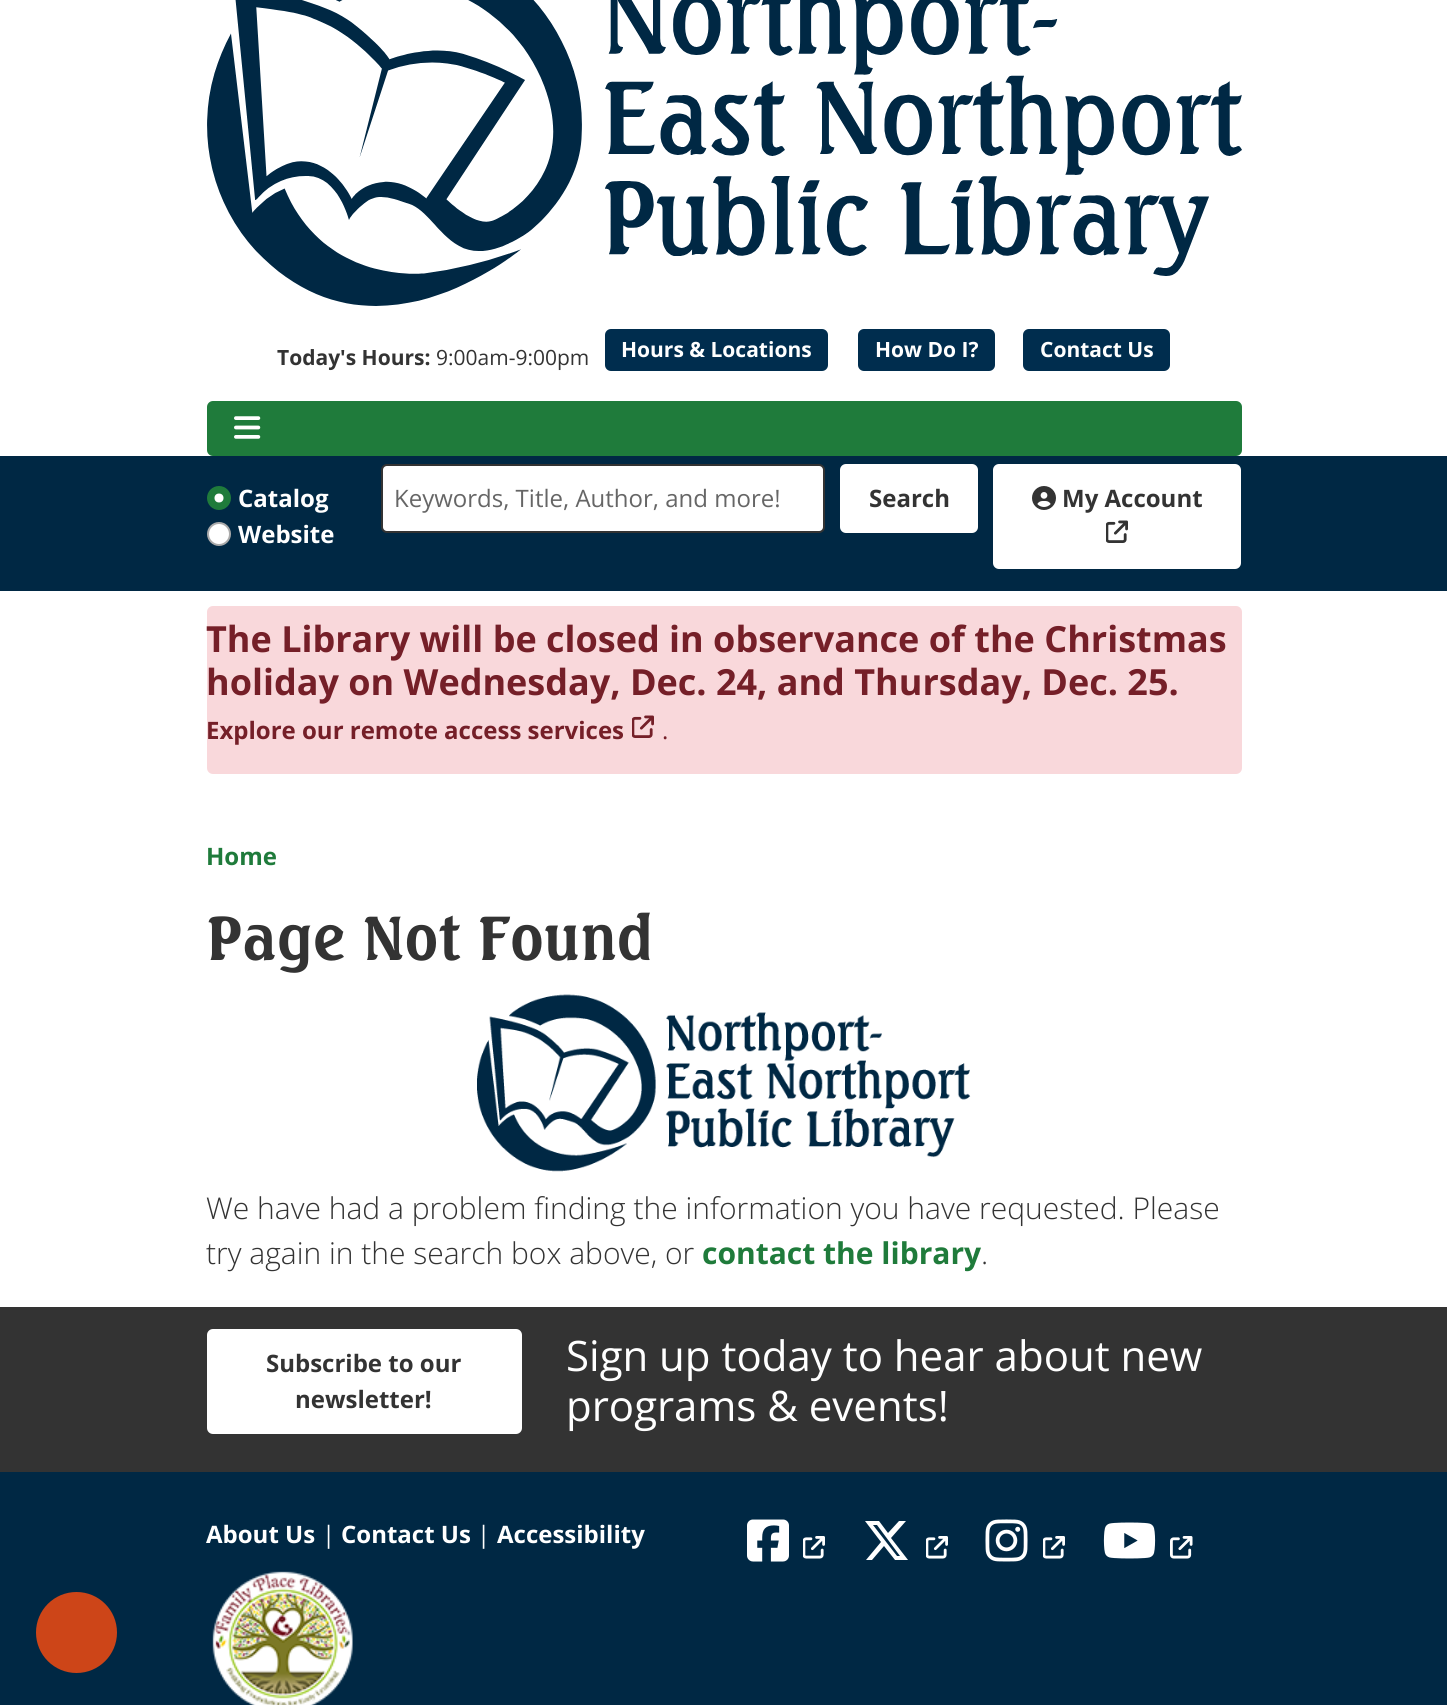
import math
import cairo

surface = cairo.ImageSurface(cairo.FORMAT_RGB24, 1447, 1705)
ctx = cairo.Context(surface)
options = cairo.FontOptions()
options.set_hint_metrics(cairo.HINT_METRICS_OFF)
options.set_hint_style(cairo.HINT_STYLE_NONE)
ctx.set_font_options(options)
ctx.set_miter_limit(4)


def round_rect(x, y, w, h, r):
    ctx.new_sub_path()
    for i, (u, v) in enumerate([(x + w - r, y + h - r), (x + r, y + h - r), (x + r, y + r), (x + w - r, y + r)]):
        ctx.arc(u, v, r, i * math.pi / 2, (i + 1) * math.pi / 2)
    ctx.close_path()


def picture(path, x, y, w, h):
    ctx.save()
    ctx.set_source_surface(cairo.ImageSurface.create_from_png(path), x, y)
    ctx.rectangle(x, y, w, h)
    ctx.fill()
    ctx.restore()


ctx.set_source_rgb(1, 1, 1)
ctx.paint()
picture("img1.png", 207, 0, 1035, 306)
ctx.select_font_face("Open Sans", cairo.FONT_SLANT_NORMAL, cairo.FONT_WEIGHT_BOLD)
ctx.set_font_size(21)
ctx.set_source_rgb(0.2, 0.2, 0.2)
ctx.move_to(277, 365)
ctx.show_text("Today's Hours:")
ctx.select_font_face("Open Sans")
ctx.move_to(436, 365)
ctx.show_text("9:00am-9:00pm")
ctx.set_source_rgb(0, 0.176, 0.306)
round_rect(606, 330, 221, 40, 5)
ctx.fill_preserve()
ctx.stroke()
ctx.select_font_face("Open Sans", cairo.FONT_SLANT_NORMAL, cairo.FONT_WEIGHT_BOLD)
ctx.set_source_rgb(1, 1, 1)
ctx.move_to(621, 357)
ctx.show_text("Hours & Locations")
ctx.set_source_rgb(0, 0.176, 0.306)
round_rect(859, 330, 135, 40, 5)
ctx.fill_preserve()
ctx.stroke()
ctx.set_source_rgb(1, 1, 1)
ctx.move_to(875, 357)
ctx.show_text("How Do I?")
ctx.set_source_rgb(0, 0.176, 0.306)
round_rect(1024, 330, 145, 40, 5)
ctx.fill_preserve()
ctx.stroke()
ctx.set_source_rgb(1, 1, 1)
ctx.move_to(1040, 357)
ctx.show_text("Contact Us")
ctx.set_source_rgb(0.122, 0.482, 0.231)
round_rect(207, 401, 1035, 55, 6)
ctx.fill()
picture("img2.png", 234, 416, 27, 23)
ctx.set_source_rgb(0, 0.157, 0.267)
ctx.rectangle(0, 456, 1447, 135)
ctx.fill()
ctx.set_source_rgb(0.122, 0.482, 0.231)
ctx.arc(219, 498, 11, 0, 2 * math.pi)
ctx.fill_preserve()
ctx.stroke()
ctx.set_font_size(24)
ctx.set_source_rgb(1, 1, 1)
ctx.move_to(238, 507)
ctx.show_text("Catalog")
ctx.new_path()
ctx.arc(219, 498, 4.5, 0, 2 * math.pi)
ctx.fill()
ctx.arc(219, 534, 11, 0, 2 * math.pi)
ctx.fill_preserve()
ctx.set_source_rgb(0.667, 0.667, 0.667)
ctx.stroke()
ctx.set_source_rgb(1, 1, 1)
ctx.move_to(238, 543)
ctx.show_text("Website")
round_rect(382, 465, 442, 67, 5)
ctx.fill_preserve()
ctx.set_source_rgb(0.2, 0.2, 0.2)
ctx.stroke()
ctx.select_font_face("Open Sans")
ctx.set_source_rgb(0.4, 0.4, 0.4)
ctx.move_to(394, 507)
ctx.show_text("Keywords, Title, Author, and more!")
ctx.set_source_rgb(1, 1, 1)
round_rect(841, 465, 136, 67, 5)
ctx.fill_preserve()
ctx.stroke()
ctx.select_font_face("Open Sans", cairo.FONT_SLANT_NORMAL, cairo.FONT_WEIGHT_BOLD)
ctx.set_source_rgb(0.2, 0.2, 0.2)
ctx.move_to(869, 507)
ctx.show_text("Search")
ctx.set_source_rgb(1, 1, 1)
round_rect(994, 465, 246, 103, 5)
ctx.fill_preserve()
ctx.stroke()
picture("img3.png", 1032, 486, 24, 24)
ctx.set_source_rgb(0.2, 0.2, 0.2)
ctx.move_to(1062, 507)
ctx.show_text("My Account")
picture("img4.png", 1106, 520, 22, 23)
ctx.set_source_rgb(0.976, 0.847, 0.859)
round_rect(207, 606, 1035, 168, 6)
ctx.fill()
ctx.set_font_size(36)
ctx.set_source_rgb(0.459, 0.122, 0.157)
ctx.move_to(206, 652)
ctx.show_text("The Library will be closed in observance of the Christmas")
ctx.move_to(206, 695)
ctx.show_text("holiday on Wednesday, Dec. 24, and Thursday, Dec. 25.")
ctx.set_font_size(24)
ctx.move_to(206, 739)
ctx.show_text("Explore our remote access services")
picture("img5.png", 632, 715, 22, 23)
ctx.select_font_face("Open Sans")
ctx.move_to(662, 739)
ctx.show_text(".")
ctx.select_font_face("Open Sans", cairo.FONT_SLANT_NORMAL, cairo.FONT_WEIGHT_BOLD)
ctx.set_source_rgb(0.122, 0.482, 0.231)
ctx.move_to(206, 865)
ctx.show_text("Home")
ctx.select_font_face("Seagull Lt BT", cairo.FONT_SLANT_NORMAL, cairo.FONT_WEIGHT_BOLD)
ctx.set_font_size(60)
ctx.set_source_rgb(0.2, 0.2, 0.2)
ctx.move_to(206, 960)
ctx.show_text("Page Not Found")
picture("img6.png", 477, 994, 494, 178)
ctx.select_font_face("Open Sans Light")
ctx.set_font_size(30)
ctx.move_to(206, 1219)
ctx.show_text("We have had a problem finding the information you have requested. Please")
ctx.move_to(206, 1264)
ctx.show_text("try again in the search box above, or")
ctx.select_font_face("Open Sans", cairo.FONT_SLANT_NORMAL, cairo.FONT_WEIGHT_BOLD)
ctx.set_source_rgb(0.122, 0.482, 0.231)
ctx.move_to(702, 1264)
ctx.show_text("contact the library")
ctx.select_font_face("Open Sans Light")
ctx.set_source_rgb(0.2, 0.2, 0.2)
ctx.move_to(981, 1264)
ctx.show_text(".")
ctx.rectangle(0, 1307, 1447, 165)
ctx.fill()
ctx.set_source_rgb(1, 1, 1)
round_rect(208, 1330, 313, 103, 5)
ctx.fill_preserve()
ctx.stroke()
ctx.select_font_face("Open Sans", cairo.FONT_SLANT_NORMAL, cairo.FONT_WEIGHT_BOLD)
ctx.set_font_size(24)
ctx.set_source_rgb(0.2, 0.2, 0.2)
ctx.move_to(266, 1372)
ctx.show_text("Subscribe to our")
ctx.move_to(295, 1408)
ctx.show_text("newsletter!")
ctx.select_font_face("Open Sans")
ctx.set_font_size(42)
ctx.set_source_rgb(1, 1, 1)
ctx.move_to(566, 1371)
ctx.show_text("Sign up today to hear about new")
ctx.move_to(566, 1421)
ctx.show_text("programs & events!")
ctx.set_source_rgb(0, 0.157, 0.267)
ctx.rectangle(0, 1472, 1447, 233)
ctx.fill()
ctx.select_font_face("Open Sans", cairo.FONT_SLANT_NORMAL, cairo.FONT_WEIGHT_BOLD)
ctx.set_font_size(24)
ctx.set_source_rgb(1, 1, 1)
ctx.move_to(206, 1543)
ctx.show_text("About Us")
ctx.select_font_face("Open Sans")
ctx.move_to(322, 1543)
ctx.show_text("|")
ctx.select_font_face("Open Sans", cairo.FONT_SLANT_NORMAL, cairo.FONT_WEIGHT_BOLD)
ctx.move_to(341, 1543)
ctx.show_text("Contact Us")
ctx.select_font_face("Open Sans")
ctx.move_to(477, 1543)
ctx.show_text("|")
ctx.select_font_face("Open Sans", cairo.FONT_SLANT_NORMAL, cairo.FONT_WEIGHT_BOLD)
ctx.move_to(497, 1543)
ctx.show_text("Accessibility")
picture("img7.png", 212, 1571, 141, 134)
picture("img8.png", 747, 1519, 42, 43)
picture("img9.png", 803, 1536, 22, 23)
ctx.new_path()
ctx.move_to(899, 1521)
ctx.line_to(906, 1521)
ctx.line_to(891, 1538)
ctx.line_to(908, 1560)
ctx.line_to(895, 1560)
ctx.line_to(884, 1546)
ctx.line_to(872, 1560)
ctx.line_to(866, 1560)
ctx.line_to(881, 1542)
ctx.line_to(865, 1521)
ctx.line_to(879, 1521)
ctx.line_to(888, 1533)
ctx.close_path()
ctx.move_to(897, 1556)
ctx.line_to(900, 1556)
ctx.line_to(877, 1525)
ctx.line_to(873, 1525)
ctx.close_path()
ctx.fill()
picture("img9.png", 926, 1536, 22, 23)
picture("img10.png", 985, 1519, 43, 43)
picture("img9.png", 1043, 1536, 22, 23)
picture("img11.png", 1103, 1522, 53, 37)
picture("img12.png", 1170, 1536, 23, 23)
ctx.set_source_rgb(0.804, 0.271, 0.094)
ctx.arc(76.5, 1632.5, 40.5, 0, 2 * math.pi)
ctx.fill()
surface.write_to_png("page.png")
